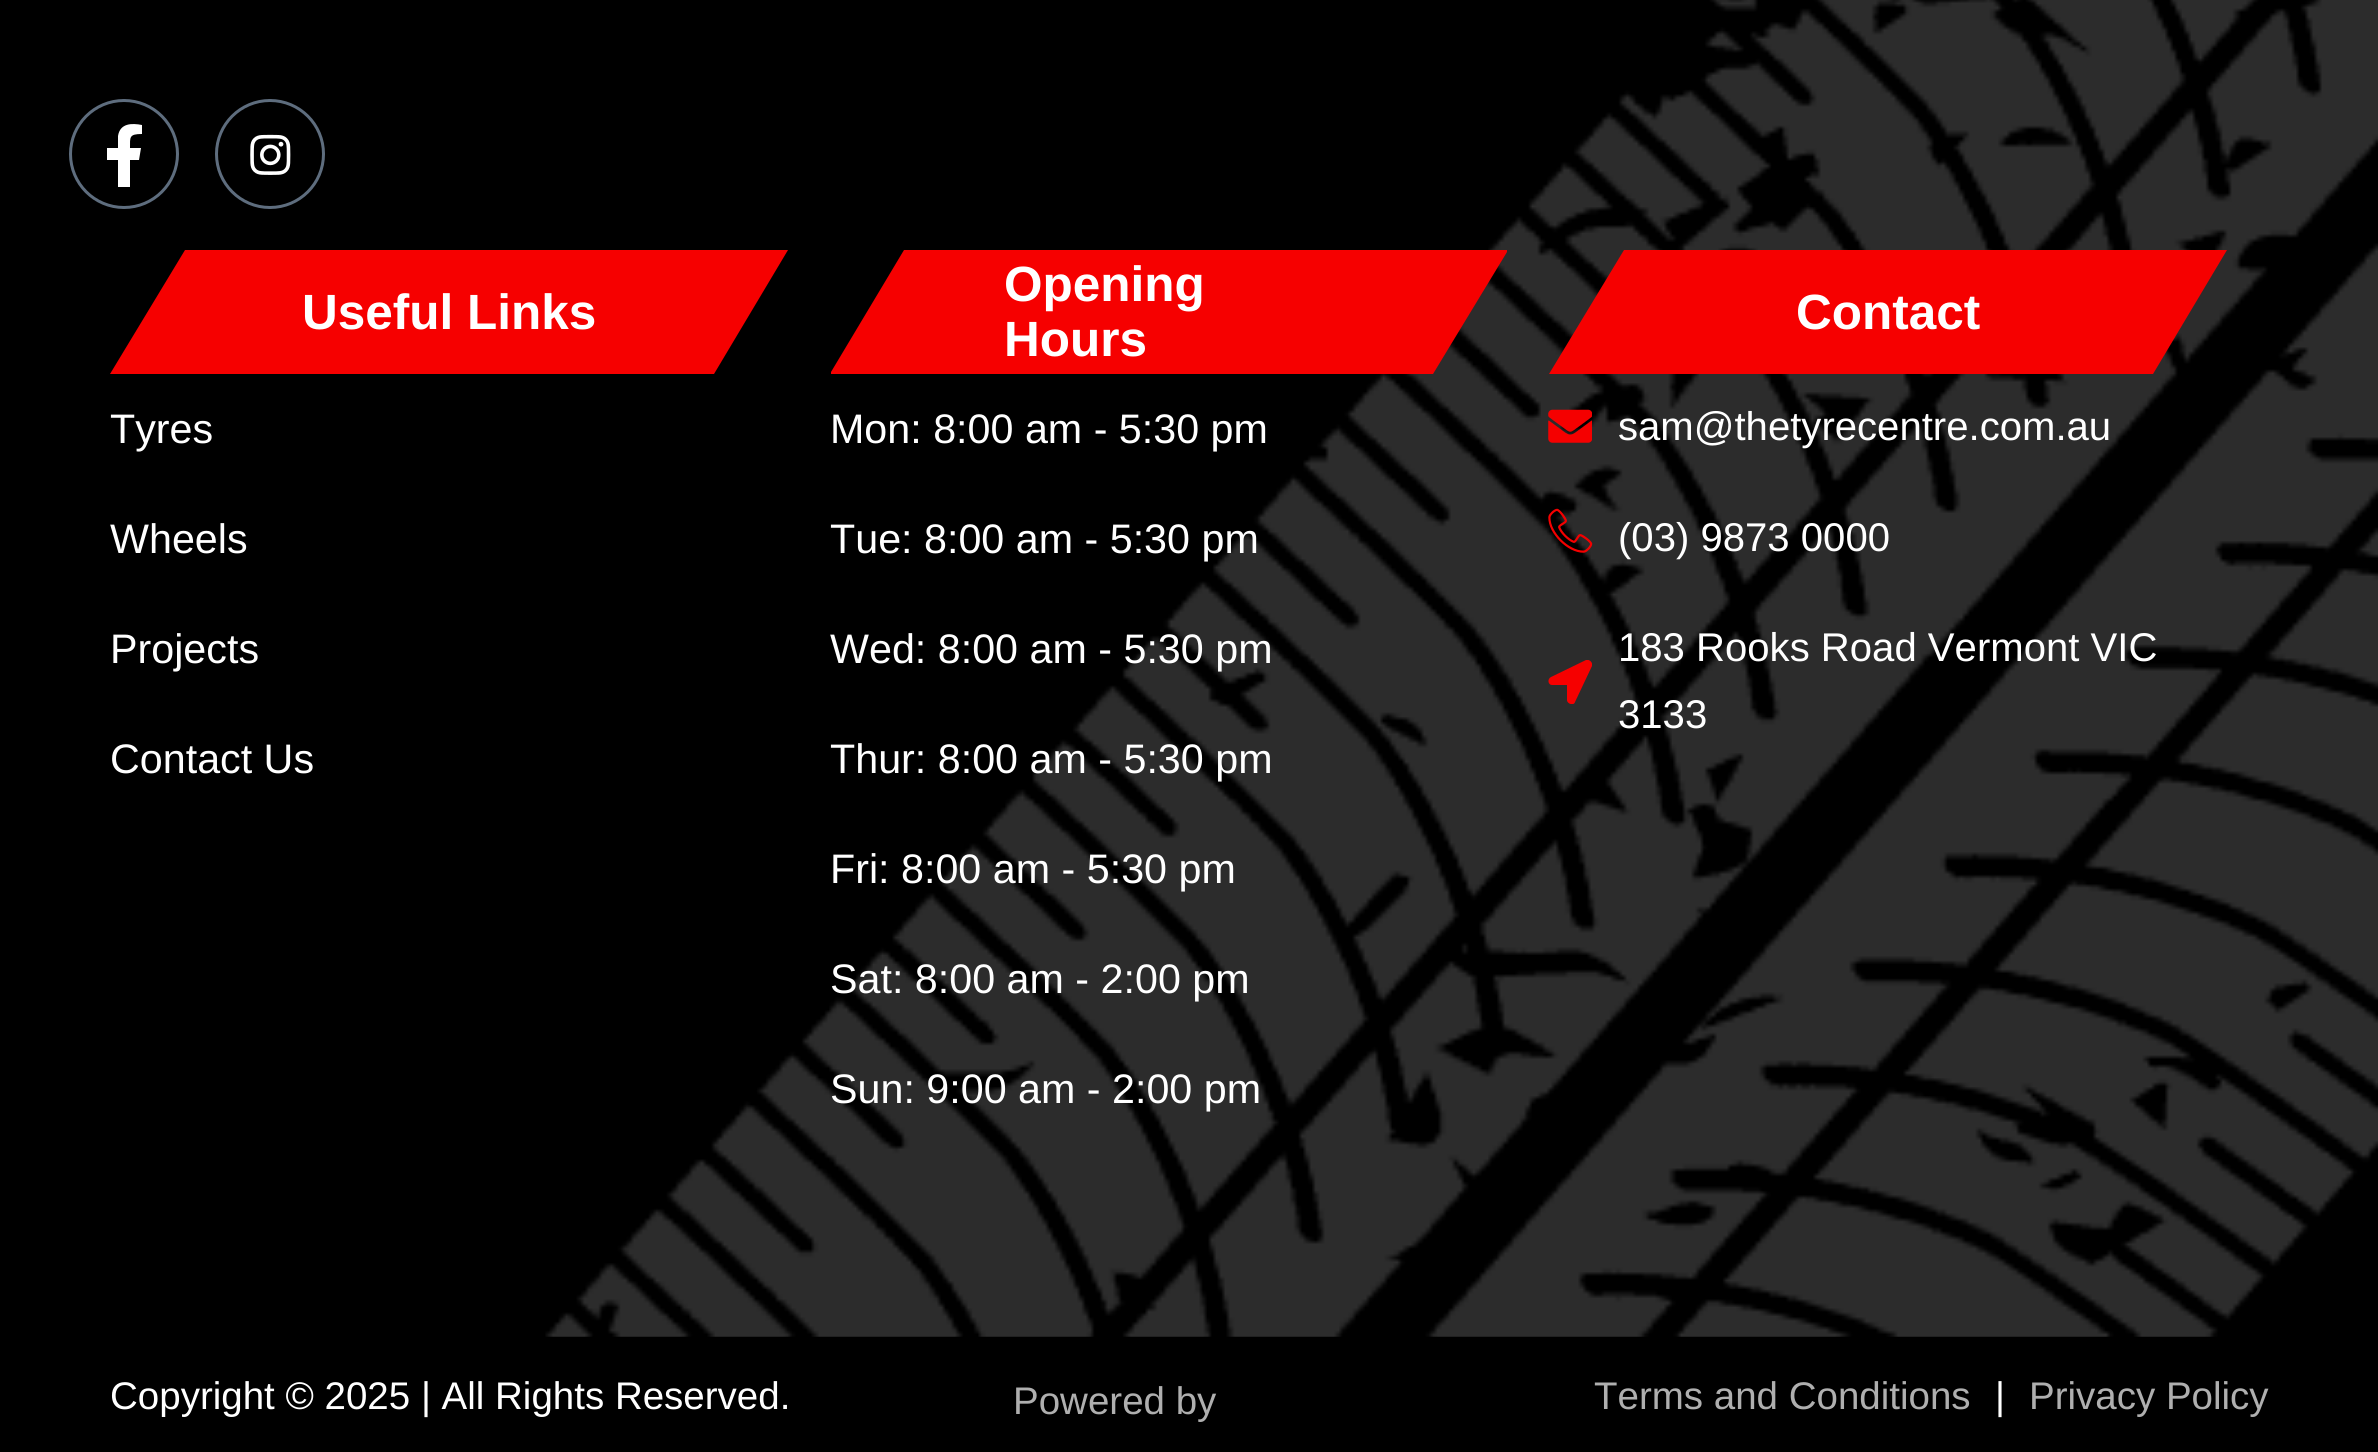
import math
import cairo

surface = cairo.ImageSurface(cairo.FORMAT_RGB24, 2378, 1452)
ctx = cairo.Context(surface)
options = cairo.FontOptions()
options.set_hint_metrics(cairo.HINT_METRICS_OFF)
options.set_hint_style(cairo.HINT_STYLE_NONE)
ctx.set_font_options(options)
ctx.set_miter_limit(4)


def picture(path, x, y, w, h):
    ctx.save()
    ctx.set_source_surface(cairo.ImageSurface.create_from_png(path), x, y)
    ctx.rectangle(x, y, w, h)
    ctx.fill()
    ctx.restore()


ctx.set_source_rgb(0, 0, 0)
ctx.paint()
picture("img1.png", 545, 0, 1833, 1337)
ctx.arc(124, 154, 53.5, 0, 2 * math.pi)
ctx.set_source_rgb(0.369, 0.427, 0.494)
ctx.set_line_width(3)
ctx.stroke()
ctx.save()
ctx.rectangle(105, 124, 38, 63)
ctx.clip()
ctx.set_source_rgb(1, 1, 1)
ctx.new_path()
ctx.move_to(139, 160)
ctx.line_to(141, 148)
ctx.line_to(130, 148)
ctx.curve_to(130, 137, 129, 134, 142, 134)
ctx.line_to(142, 125)
ctx.curve_to(132, 123, 120, 123, 118, 136)
ctx.line_to(118, 148)
ctx.line_to(107, 148)
ctx.line_to(107, 160)
ctx.line_to(118, 160)
ctx.line_to(118, 188)
ctx.line_to(130, 188)
ctx.line_to(130, 160)
ctx.close_path()
ctx.fill()
ctx.restore()
ctx.arc(270, 154, 53.5, 0, 2 * math.pi)
ctx.stroke()
picture("img2.png", 250, 134, 41, 41)
ctx.set_source_rgb(0.961, 0, 0)
ctx.new_path()
ctx.move_to(185, 250)
ctx.line_to(788, 250)
ctx.line_to(714, 374)
ctx.line_to(110, 374)
ctx.close_path()
ctx.fill()
ctx.select_font_face("Liberation Sans", cairo.FONT_SLANT_NORMAL, cairo.FONT_WEIGHT_BOLD)
ctx.set_font_size(49.5)
ctx.set_source_rgb(1, 1, 1)
ctx.move_to(302, 329)
ctx.show_text("Useful Links")
ctx.select_font_face("Liberation Sans")
ctx.set_font_size(41.25)
ctx.move_to(110, 443)
ctx.show_text("Tyres")
ctx.move_to(110, 553)
ctx.show_text("Wheels")
ctx.move_to(110, 663)
ctx.show_text("Projects")
ctx.move_to(110, 773)
ctx.show_text("Contact Us")
ctx.set_source_rgb(0.961, 0, 0)
ctx.new_path()
ctx.move_to(904, 250)
ctx.line_to(1507, 250)
ctx.line_to(1507, 252)
ctx.line_to(1433, 374)
ctx.line_to(831, 374)
ctx.line_to(831, 372)
ctx.close_path()
ctx.fill()
ctx.select_font_face("Liberation Sans", cairo.FONT_SLANT_NORMAL, cairo.FONT_WEIGHT_BOLD)
ctx.set_font_size(49.5)
ctx.set_source_rgb(1, 1, 1)
ctx.move_to(1004, 301)
ctx.show_text("Opening")
ctx.move_to(1004, 356)
ctx.show_text("Hours")
ctx.select_font_face("Liberation Sans")
ctx.set_font_size(41.25)
ctx.move_to(830, 443)
ctx.show_text("Mon: 8:00 am - 5:30 pm")
ctx.move_to(830, 553)
ctx.show_text("Tue: 8:00 am - 5:30 pm")
ctx.move_to(830, 663)
ctx.show_text("Wed: 8:00 am - 5:30 pm")
ctx.move_to(830, 773)
ctx.show_text("Thur: 8:00 am - 5:30 pm")
ctx.move_to(830, 883)
ctx.show_text("Fri: 8:00 am - 5:30 pm")
ctx.move_to(830, 993)
ctx.show_text("Sat: 8:00 am - 2:00 pm")
ctx.move_to(830, 1103)
ctx.show_text("Sun: 9:00 am - 2:00 pm")
ctx.set_source_rgb(0.961, 0, 0)
ctx.new_path()
ctx.move_to(1624, 250)
ctx.line_to(2227, 250)
ctx.line_to(2153, 374)
ctx.line_to(1549, 374)
ctx.close_path()
ctx.fill()
ctx.select_font_face("Liberation Sans", cairo.FONT_SLANT_NORMAL, cairo.FONT_WEIGHT_BOLD)
ctx.set_font_size(49.5)
ctx.set_source_rgb(1, 1, 1)
ctx.move_to(1796, 329)
ctx.show_text("Contact")
picture("img3.png", 1548, 409, 44, 34)
ctx.select_font_face("Liberation Sans")
ctx.set_font_size(40.1)
ctx.move_to(1618, 440)
ctx.show_text("sam@thetyrecentre.com.au")
picture("img4.png", 1548, 508, 45, 45)
ctx.move_to(1618, 551)
ctx.show_text("(03) 9873 0000")
ctx.save()
ctx.rectangle(1548, 660, 44, 44)
ctx.clip()
ctx.set_source_rgb(0.961, 0, 0)
ctx.new_path()
ctx.move_to(1586, 660)
ctx.line_to(1551, 677)
ctx.curve_to(1547, 679, 1548, 685, 1552, 685)
ctx.line_to(1567, 685)
ctx.line_to(1567, 700)
ctx.curve_to(1567, 704, 1574, 706, 1575, 702)
ctx.line_to(1592, 666)
ctx.curve_to(1593, 663, 1590, 659, 1586, 660)
ctx.close_path()
ctx.fill()
ctx.restore()
ctx.move_to(1618, 661)
ctx.show_text("183 Rooks Road Vermont VIC")
ctx.move_to(1618, 728)
ctx.show_text("3133")
ctx.set_font_size(38.5)
ctx.move_to(110, 1409)
ctx.show_text("Copyright © 2025 | All Rights Reserved.")
ctx.set_source_rgb(0.686, 0.686, 0.686)
ctx.move_to(1013, 1414)
ctx.show_text("Powered by")
ctx.move_to(1594, 1409)
ctx.show_text("Terms and Conditions")
ctx.set_source_rgb(1, 1, 1)
ctx.move_to(1995, 1409)
ctx.show_text("|")
ctx.set_source_rgb(0.686, 0.686, 0.686)
ctx.move_to(2029, 1409)
ctx.show_text("Privacy Policy")
surface.write_to_png("page.png")
